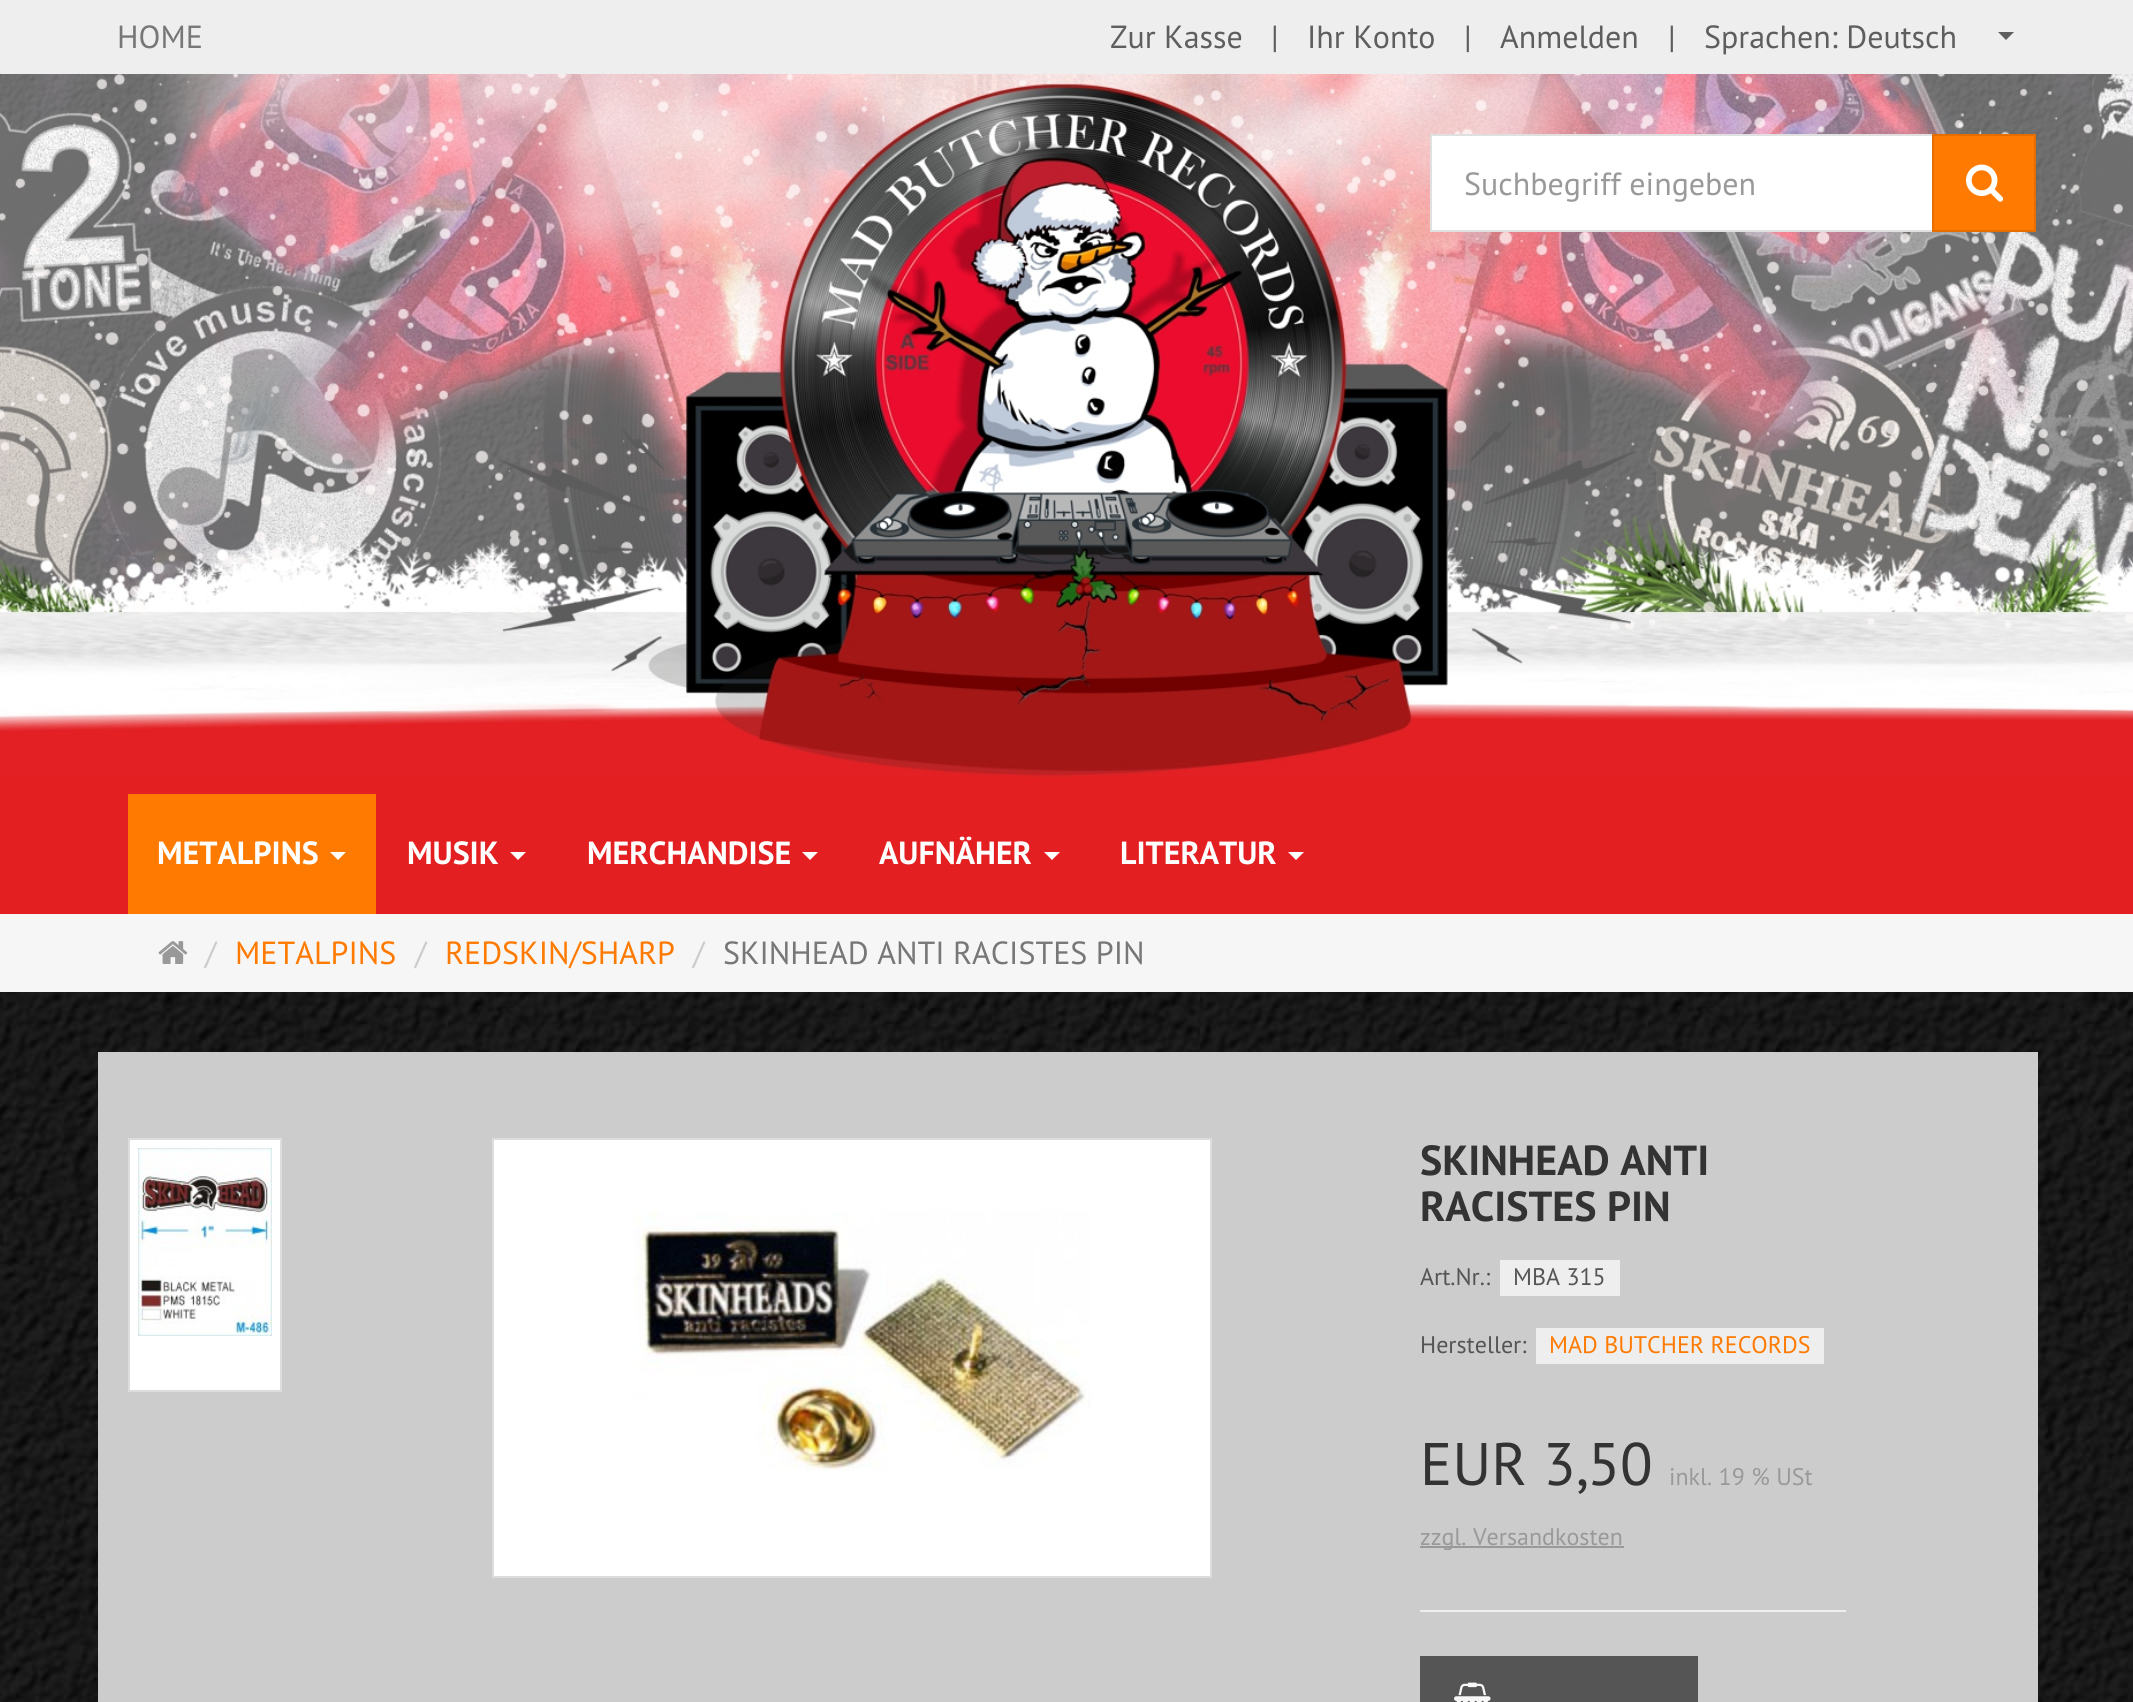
import math
import cairo

surface = cairo.ImageSurface(cairo.FORMAT_RGB24, 2133, 1702)
ctx = cairo.Context(surface)
options = cairo.FontOptions()
options.set_hint_metrics(cairo.HINT_METRICS_OFF)
options.set_hint_style(cairo.HINT_STYLE_NONE)
ctx.set_font_options(options)
ctx.set_miter_limit(4)


def picture(path, x, y, w, h):
    ctx.save()
    ctx.set_source_surface(cairo.ImageSurface.create_from_png(path), x, y)
    ctx.rectangle(x, y, w, h)
    ctx.fill()
    ctx.restore()


ctx.set_source_rgb(1, 1, 1)
ctx.paint()
picture("img1.png", 0, 992, 2133, 710)
ctx.set_source_rgb(0.89, 0.122, 0.129)
ctx.rectangle(0, 777, 2133, 137)
ctx.fill()
ctx.set_source_rgb(0.933, 0.933, 0.933)
ctx.rectangle(0, 0, 2133, 74)
ctx.fill()
ctx.select_font_face("PT Sans")
ctx.set_font_size(32)
ctx.set_source_rgb(0.467, 0.467, 0.467)
ctx.move_to(117, 48)
ctx.show_text("HOME")
ctx.set_source_rgb(0.369, 0.369, 0.369)
ctx.move_to(1110, 48)
ctx.show_text("Zur Kasse")
ctx.move_to(1271, 48)
ctx.show_text("|")
ctx.move_to(1307, 48)
ctx.show_text("Ihr Konto")
ctx.move_to(1464, 48)
ctx.show_text("|")
ctx.move_to(1500, 48)
ctx.show_text("Anmelden")
ctx.move_to(1668, 48)
ctx.show_text("|")
ctx.move_to(1704, 48)
ctx.show_text("Sprachen: Deutsch")
ctx.new_path()
ctx.move_to(1998, 32)
ctx.line_to(2014, 32)
ctx.line_to(2006, 40)
ctx.close_path()
ctx.fill()
picture("img2.png", 0, 74, 2133, 703)
ctx.set_source_rgb(1, 1, 1)
ctx.rectangle(1431, 135, 502, 96)
ctx.fill_preserve()
ctx.set_source_rgb(0.878, 0.878, 0.878)
ctx.stroke()
ctx.set_source_rgb(0.6, 0.6, 0.6)
ctx.move_to(1464, 195)
ctx.show_text("Suchbegriff eingeben")
ctx.set_source_rgb(1, 0.478, 0)
ctx.rectangle(1933, 135, 102, 96)
ctx.fill_preserve()
ctx.set_source_rgb(0.902, 0.431, 0)
ctx.stroke()
picture("img3.png", 1966, 164, 38, 38)
ctx.set_source_rgb(1, 0.478, 0)
ctx.rectangle(128, 794, 248, 120)
ctx.fill()
ctx.select_font_face("PT Sans", cairo.FONT_SLANT_NORMAL, cairo.FONT_WEIGHT_BOLD)
ctx.set_source_rgb(1, 1, 1)
ctx.move_to(157, 864)
ctx.show_text("METALPINS")
ctx.new_path()
ctx.move_to(330, 852)
ctx.line_to(346, 852)
ctx.line_to(338, 860)
ctx.close_path()
ctx.fill()
ctx.move_to(407, 864)
ctx.show_text("MUSIK")
ctx.new_path()
ctx.move_to(510, 852)
ctx.line_to(526, 852)
ctx.line_to(518, 860)
ctx.close_path()
ctx.fill()
ctx.move_to(587, 864)
ctx.show_text("MERCHANDISE")
ctx.new_path()
ctx.move_to(802, 852)
ctx.line_to(818, 852)
ctx.line_to(810, 860)
ctx.close_path()
ctx.fill()
ctx.move_to(879, 864)
ctx.show_text("AUFNÄHER")
ctx.new_path()
ctx.move_to(1044, 852)
ctx.line_to(1060, 852)
ctx.line_to(1052, 860)
ctx.close_path()
ctx.fill()
ctx.move_to(1120, 864)
ctx.show_text("LITERATUR")
ctx.new_path()
ctx.move_to(1288, 852)
ctx.line_to(1304, 852)
ctx.line_to(1296, 860)
ctx.close_path()
ctx.fill()
ctx.set_source_rgb(0.961, 0.961, 0.961)
ctx.rectangle(0, 914, 2133, 78)
ctx.fill()
picture("img4.png", 158, 941, 30, 23)
ctx.select_font_face("PT Sans")
ctx.set_source_rgb(0.8, 0.8, 0.8)
ctx.move_to(205, 964)
ctx.show_text("/")
ctx.set_source_rgb(1, 0.478, 0)
ctx.move_to(235, 964)
ctx.show_text("METALPINS")
ctx.set_source_rgb(0.8, 0.8, 0.8)
ctx.move_to(415, 964)
ctx.show_text("/")
ctx.set_source_rgb(1, 0.478, 0)
ctx.move_to(445, 964)
ctx.show_text("REDSKIN/SHARP")
ctx.set_source_rgb(0.8, 0.8, 0.8)
ctx.move_to(693, 964)
ctx.show_text("/")
ctx.set_source_rgb(0.467, 0.467, 0.467)
ctx.move_to(723, 964)
ctx.show_text("SKINHEAD ANTI RACISTES PIN")
ctx.set_source_rgb(0.8, 0.8, 0.8)
ctx.rectangle(98, 1052, 1940, 650)
ctx.fill()
ctx.set_source_rgb(1, 1, 1)
ctx.rectangle(129, 1139, 152, 252)
ctx.fill_preserve()
ctx.set_source_rgb(0.867, 0.867, 0.867)
ctx.stroke()
picture("img5.png", 138, 1148, 134, 188)
ctx.set_source_rgb(1, 1, 1)
ctx.rectangle(493, 1139, 718, 438)
ctx.fill_preserve()
ctx.set_source_rgb(0.867, 0.867, 0.867)
ctx.stroke()
picture("img6.png", 633, 1211, 458, 260)
ctx.select_font_face("PT Sans", cairo.FONT_SLANT_NORMAL, cairo.FONT_WEIGHT_BOLD)
ctx.set_font_size(42)
ctx.set_source_rgb(0.2, 0.2, 0.2)
ctx.move_to(1420, 1175)
ctx.show_text("SKINHEAD ANTI")
ctx.move_to(1420, 1221)
ctx.show_text("RACISTES PIN")
ctx.select_font_face("PT Sans")
ctx.set_font_size(24)
ctx.set_source_rgb(0.333, 0.333, 0.333)
ctx.move_to(1420, 1285)
ctx.show_text("Art.Nr.:")
ctx.set_source_rgb(0.933, 0.933, 0.933)
ctx.rectangle(1500, 1260, 120, 36)
ctx.fill()
ctx.set_source_rgb(0.333, 0.333, 0.333)
ctx.move_to(1513, 1285)
ctx.show_text("MBA 315")
ctx.move_to(1420, 1353)
ctx.show_text("Hersteller:")
ctx.set_source_rgb(0.933, 0.933, 0.933)
ctx.rectangle(1536, 1328, 288, 36)
ctx.fill()
ctx.set_source_rgb(1, 0.478, 0)
ctx.move_to(1549, 1353)
ctx.show_text("MAD BUTCHER RECORDS")
ctx.set_font_size(60)
ctx.set_source_rgb(0.2, 0.2, 0.2)
ctx.move_to(1420, 1485)
ctx.show_text("EUR 3,50")
ctx.set_font_size(24)
ctx.set_source_rgb(0.6, 0.6, 0.6)
ctx.move_to(1669, 1485)
ctx.show_text("inkl. 19 % USt")
ctx.rectangle(1420, 1546, 204, 2)
ctx.fill()
ctx.move_to(1420, 1545)
ctx.show_text("zzgl. Versandkosten")
ctx.set_source_rgb(0.933, 0.933, 0.933)
ctx.rectangle(1420, 1610, 426, 2)
ctx.fill()
ctx.set_source_rgb(0.333, 0.333, 0.333)
ctx.rectangle(1420, 1656, 278, 46)
ctx.fill()
picture("img7.png", 1454, 1682, 37, 20)
surface.write_to_png("page.png")
